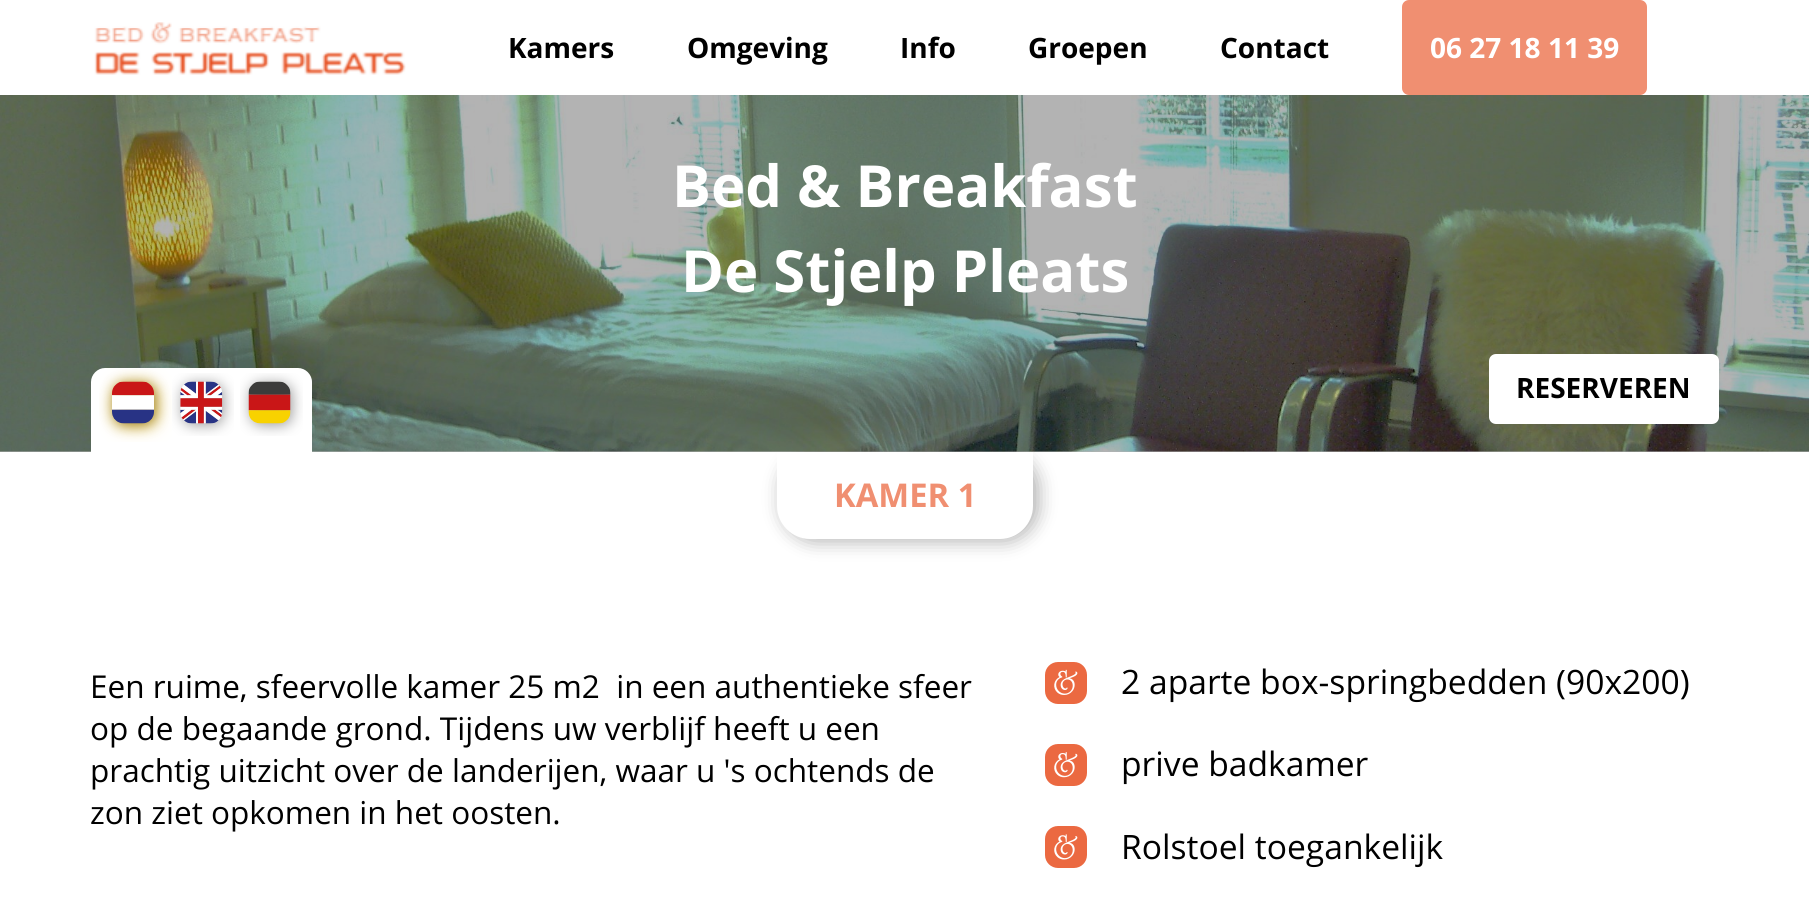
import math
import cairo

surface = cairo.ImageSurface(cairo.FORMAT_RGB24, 1809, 900)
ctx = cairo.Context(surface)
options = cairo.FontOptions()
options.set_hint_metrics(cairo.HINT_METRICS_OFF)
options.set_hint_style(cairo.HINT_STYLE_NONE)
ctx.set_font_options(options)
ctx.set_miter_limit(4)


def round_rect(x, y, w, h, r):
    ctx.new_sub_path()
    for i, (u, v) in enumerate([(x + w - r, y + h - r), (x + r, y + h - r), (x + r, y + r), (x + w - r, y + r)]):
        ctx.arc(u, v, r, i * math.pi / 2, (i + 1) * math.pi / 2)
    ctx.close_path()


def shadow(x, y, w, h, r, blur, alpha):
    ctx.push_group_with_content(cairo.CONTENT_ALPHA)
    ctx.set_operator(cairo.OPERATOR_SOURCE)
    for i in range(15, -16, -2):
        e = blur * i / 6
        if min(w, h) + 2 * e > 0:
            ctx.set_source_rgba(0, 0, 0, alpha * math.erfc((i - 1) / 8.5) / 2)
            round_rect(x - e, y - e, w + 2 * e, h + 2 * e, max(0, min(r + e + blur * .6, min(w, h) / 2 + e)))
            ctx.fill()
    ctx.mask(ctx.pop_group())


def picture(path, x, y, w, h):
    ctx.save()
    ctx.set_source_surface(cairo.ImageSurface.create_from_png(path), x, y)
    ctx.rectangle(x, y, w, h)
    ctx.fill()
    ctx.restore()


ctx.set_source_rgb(1, 1, 1)
ctx.paint()
ctx.set_source_rgb(0.702, 0.702, 0.702)
ctx.rectangle(0, 451, 1809, 1)
ctx.fill()
picture("img1.png", 94, 22, 312, 53)
ctx.select_font_face("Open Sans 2", cairo.FONT_SLANT_NORMAL, cairo.FONT_WEIGHT_BOLD)
ctx.set_font_size(28)
ctx.set_source_rgb(0, 0, 0)
ctx.move_to(508, 58)
ctx.show_text("Kamers")
ctx.move_to(687, 58)
ctx.show_text("Omgeving")
ctx.move_to(900, 58)
ctx.show_text("Info")
ctx.move_to(1028, 58)
ctx.show_text("Groepen")
ctx.move_to(1220, 58)
ctx.show_text("Contact")
ctx.set_source_rgb(0.941, 0.561, 0.443)
round_rect(1402, 0, 245, 95, 7)
ctx.fill()
ctx.set_source_rgb(1, 1, 1)
ctx.move_to(1430, 58)
ctx.show_text("06 27 18 11 39")
ctx.set_source_rgb(0, 0, 0)
shadow(782, 453, 256, 88, 33, 9.5, 0.32)
picture("img2.png", 0, 95, 1809, 357)
ctx.select_font_face("Open Sans", cairo.FONT_SLANT_NORMAL, cairo.FONT_WEIGHT_BOLD)
ctx.set_font_size(58)
ctx.set_source_rgb(1, 1, 1)
ctx.move_to(672, 207)
ctx.show_text("Bed & Breakfast")
ctx.move_to(681, 292)
ctx.show_text("De Stjelp Pleats")
ctx.new_path()
ctx.move_to(105, 368)
ctx.line_to(298, 368)
ctx.curve_to(305.5, 368, 312, 374.5, 312, 382)
ctx.line_to(312, 452)
ctx.line_to(91, 452)
ctx.line_to(91, 382)
ctx.curve_to(91, 374.5, 97.5, 368, 105, 368)
ctx.close_path()
ctx.fill()
picture("img3.png", 99, 369, 73, 73)
picture("img4.png", 172, 373, 62, 63)
picture("img5.png", 240, 373, 63, 63)
round_rect(1489, 354, 230, 70, 7)
ctx.fill()
ctx.set_font_size(28)
ctx.set_source_rgb(0, 0, 0)
ctx.move_to(1516, 398)
ctx.show_text("RESERVEREN")
ctx.set_source_rgb(1, 1, 1)
ctx.new_path()
ctx.move_to(777, 452)
ctx.line_to(1033, 452)
ctx.line_to(1033, 506)
ctx.curve_to(1033, 524, 1018, 539, 1000, 539)
ctx.line_to(810, 539)
ctx.curve_to(792, 539, 777, 524, 777, 506)
ctx.close_path()
ctx.fill()
ctx.set_font_size(32.75)
ctx.set_source_rgb(0.941, 0.561, 0.443)
ctx.move_to(834, 507)
ctx.show_text("KAMER 1")
ctx.select_font_face("Open Sans")
ctx.set_font_size(31.5)
ctx.set_source_rgb(0, 0, 0)
ctx.move_to(90, 698)
ctx.show_text("Een ruime, sfeervolle kamer 25 m2  in een authentieke sfeer")
ctx.move_to(90, 740)
ctx.show_text("op de begaande grond. Tijdens uw verblijf heeft u een")
ctx.move_to(90, 782)
ctx.show_text("prachtig uitzicht over de landerijen, waar u 's ochtends de")
ctx.move_to(90, 824)
ctx.show_text("zon ziet opkomen in het oosten.")
picture("img6.png", 1045, 662, 42, 42)
ctx.set_font_size(33.6)
ctx.move_to(1121, 694)
ctx.show_text("2 aparte box-springbedden (90x200)")
picture("img7.png", 1045, 744, 42, 42)
ctx.move_to(1121, 776)
ctx.show_text("prive badkamer")
picture("img8.png", 1045, 826, 42, 42)
ctx.move_to(1121, 859)
ctx.show_text("Rolstoel toegankelijk")
surface.write_to_png("page.png")
